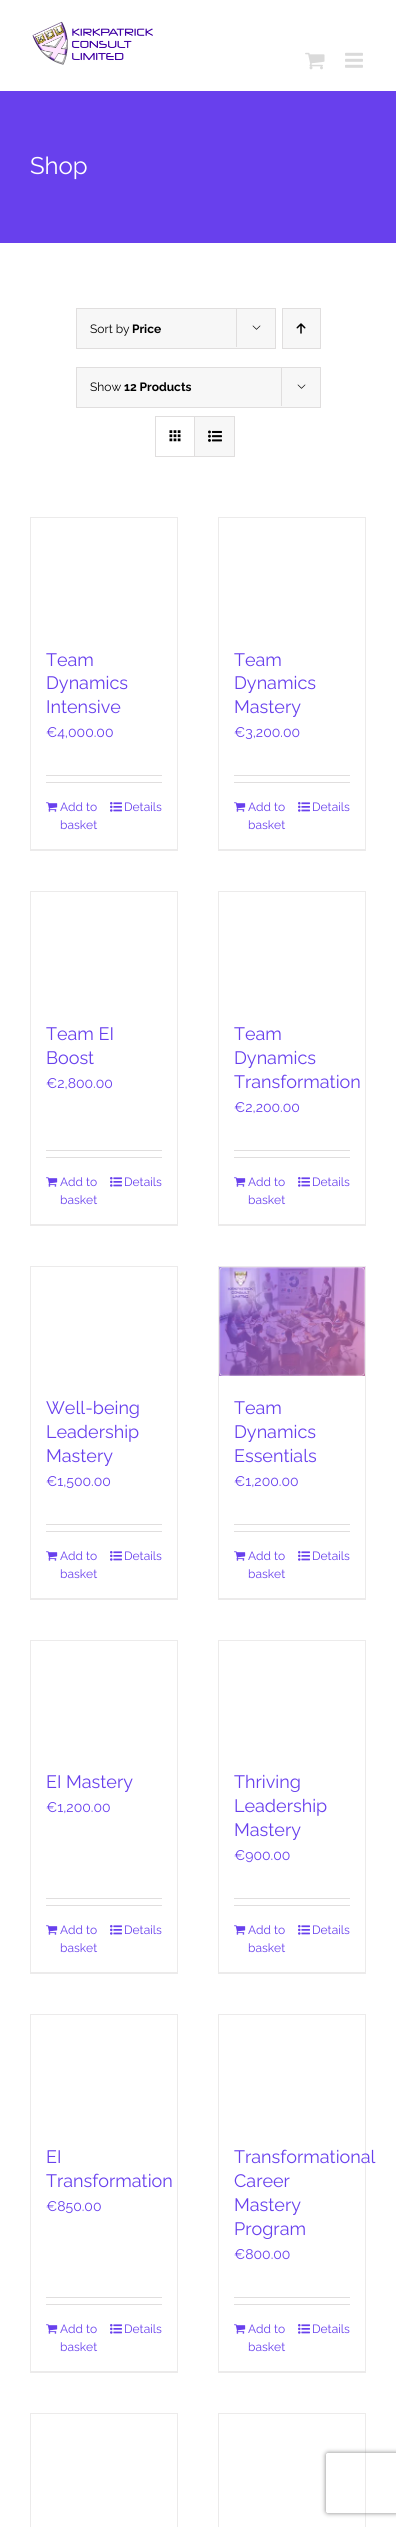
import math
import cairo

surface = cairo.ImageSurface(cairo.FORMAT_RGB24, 396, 2527)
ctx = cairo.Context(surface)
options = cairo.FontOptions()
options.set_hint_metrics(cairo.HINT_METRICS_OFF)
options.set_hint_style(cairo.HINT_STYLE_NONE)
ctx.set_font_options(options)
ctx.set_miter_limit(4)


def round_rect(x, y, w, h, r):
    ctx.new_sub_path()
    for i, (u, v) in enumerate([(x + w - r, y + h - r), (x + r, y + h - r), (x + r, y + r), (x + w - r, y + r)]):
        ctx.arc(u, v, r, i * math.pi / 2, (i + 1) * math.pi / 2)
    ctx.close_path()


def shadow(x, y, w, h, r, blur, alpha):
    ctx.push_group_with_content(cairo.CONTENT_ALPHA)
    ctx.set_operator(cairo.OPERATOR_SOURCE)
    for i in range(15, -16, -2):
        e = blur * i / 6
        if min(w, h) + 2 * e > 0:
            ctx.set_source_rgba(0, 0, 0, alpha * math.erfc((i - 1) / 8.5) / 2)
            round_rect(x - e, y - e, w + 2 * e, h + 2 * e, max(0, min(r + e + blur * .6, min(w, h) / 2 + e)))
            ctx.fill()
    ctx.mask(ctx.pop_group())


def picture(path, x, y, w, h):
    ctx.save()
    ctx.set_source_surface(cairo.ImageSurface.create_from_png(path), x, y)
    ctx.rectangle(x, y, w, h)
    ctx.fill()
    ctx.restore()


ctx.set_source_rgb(1, 1, 1)
ctx.paint()
picture("img1.png", 32, 21, 121, 44)
picture("img2.png", 305, 52, 20, 18)
picture("img3.png", 345, 52, 18, 16)
ctx.set_source_rgb(0.408, 0.251, 0.929)
ctx.rectangle(0, 91, 396, 152)
ctx.fill()
ctx.select_font_face("Raleway")
ctx.set_font_size(24)
ctx.set_source_rgb(1, 1, 1)
ctx.move_to(30, 174)
ctx.show_text("Shop")
ctx.set_source_rgb(0.965, 0.965, 0.965)
ctx.rectangle(76.5, 308.5, 199, 40)
ctx.fill_preserve()
ctx.set_source_rgb(0.878, 0.871, 0.871)
ctx.set_line_width(1)
ctx.stroke()
ctx.set_font_size(12)
ctx.set_source_rgb(0, 0, 0)
ctx.move_to(90, 333)
ctx.show_text("Sort by")
ctx.select_font_face("Raleway", cairo.FONT_SLANT_NORMAL, cairo.FONT_WEIGHT_BOLD)
ctx.move_to(132, 333)
ctx.show_text("Price")
ctx.set_source_rgb(0.878, 0.871, 0.871)
ctx.rectangle(236, 308, 1, 39)
ctx.fill()
picture("img4.png", 252, 325, 9, 5)
ctx.set_source_rgb(0.965, 0.965, 0.965)
ctx.rectangle(282.5, 308.5, 38, 40)
ctx.fill_preserve()
ctx.set_source_rgb(0.878, 0.871, 0.871)
ctx.stroke()
picture("img5.png", 296, 323, 10, 11)
ctx.set_source_rgb(0.965, 0.965, 0.965)
ctx.rectangle(76.5, 367.5, 244, 40)
ctx.fill_preserve()
ctx.set_source_rgb(0.878, 0.871, 0.871)
ctx.stroke()
ctx.select_font_face("Raleway")
ctx.set_source_rgb(0, 0, 0)
ctx.move_to(90, 391)
ctx.show_text("Show")
ctx.select_font_face("Raleway", cairo.FONT_SLANT_NORMAL, cairo.FONT_WEIGHT_BOLD)
ctx.move_to(124, 391)
ctx.show_text("12 Products")
ctx.set_source_rgb(0.878, 0.871, 0.871)
ctx.rectangle(281, 367, 1, 39)
ctx.fill()
picture("img4.png", 297, 384, 9, 5)
ctx.rectangle(155.5, 416.5, 79, 40)
ctx.stroke()
ctx.rectangle(194, 417, 1, 39)
ctx.fill()
picture("img6.png", 169, 430, 12, 12)
ctx.set_source_rgb(0.965, 0.965, 0.965)
ctx.rectangle(195, 417, 39, 39)
ctx.fill()
picture("img7.png", 208, 430, 14, 12)
ctx.set_source_rgb(0.922, 0.918, 0.918)
ctx.rectangle(30, 517, 148, 1)
ctx.fill()
ctx.rectangle(177, 517, 1, 334)
ctx.fill()
ctx.rectangle(30, 849, 148, 2)
ctx.fill()
ctx.rectangle(30, 517, 1, 334)
ctx.fill()
ctx.select_font_face("Raleway")
ctx.set_font_size(18)
ctx.set_source_rgb(0.408, 0.251, 0.929)
ctx.move_to(46, 666)
ctx.show_text("Team")
ctx.move_to(46, 689)
ctx.show_text("Dynamics")
ctx.move_to(46, 713)
ctx.show_text("Intensive")
ctx.set_font_size(14)
ctx.move_to(46, 737)
ctx.show_text("€4,000.00")
ctx.set_source_rgb(0.878, 0.871, 0.871)
ctx.rectangle(46, 775, 116, 1)
ctx.fill()
ctx.rectangle(46, 782, 116, 1)
ctx.fill()
picture("img8.png", 46, 802, 12, 10)
ctx.set_font_size(12)
ctx.set_source_rgb(0.408, 0.251, 0.929)
ctx.move_to(60, 811)
ctx.show_text("Add to")
ctx.move_to(60, 829)
ctx.show_text("basket")
picture("img9.png", 110, 802, 12, 10)
ctx.move_to(124, 811)
ctx.show_text("Details")
ctx.set_source_rgb(0.922, 0.918, 0.918)
ctx.rectangle(218, 517, 148, 1)
ctx.fill()
ctx.rectangle(365, 517, 1, 334)
ctx.fill()
ctx.rectangle(218, 849, 148, 2)
ctx.fill()
ctx.rectangle(218, 517, 1, 334)
ctx.fill()
ctx.set_font_size(18)
ctx.set_source_rgb(0.408, 0.251, 0.929)
ctx.move_to(234, 666)
ctx.show_text("Team")
ctx.move_to(234, 689)
ctx.show_text("Dynamics")
ctx.move_to(234, 713)
ctx.show_text("Mastery")
ctx.set_font_size(14)
ctx.move_to(234, 737)
ctx.show_text("€3,200.00")
ctx.set_source_rgb(0.878, 0.871, 0.871)
ctx.rectangle(234, 775, 116, 1)
ctx.fill()
ctx.rectangle(234, 782, 116, 1)
ctx.fill()
picture("img8.png", 234, 802, 12, 10)
ctx.set_font_size(12)
ctx.set_source_rgb(0.408, 0.251, 0.929)
ctx.move_to(248, 811)
ctx.show_text("Add to")
ctx.move_to(248, 829)
ctx.show_text("basket")
picture("img9.png", 298, 802, 12, 10)
ctx.move_to(312, 811)
ctx.show_text("Details")
ctx.set_source_rgb(0.922, 0.918, 0.918)
ctx.rectangle(30, 891, 148, 1)
ctx.fill()
ctx.rectangle(177, 891, 1, 335)
ctx.fill()
ctx.rectangle(30, 1224, 148, 2)
ctx.fill()
ctx.rectangle(30, 891, 1, 335)
ctx.fill()
ctx.set_font_size(18)
ctx.set_source_rgb(0.408, 0.251, 0.929)
ctx.move_to(46, 1040)
ctx.show_text("Team EI")
ctx.move_to(46, 1064)
ctx.show_text("Boost")
ctx.set_font_size(14)
ctx.move_to(46, 1088)
ctx.show_text("€2,800.00")
ctx.set_source_rgb(0.878, 0.871, 0.871)
ctx.rectangle(46, 1150, 116, 1)
ctx.fill()
ctx.rectangle(46, 1157, 116, 1)
ctx.fill()
picture("img8.png", 46, 1177, 12, 10)
ctx.set_font_size(12)
ctx.set_source_rgb(0.408, 0.251, 0.929)
ctx.move_to(60, 1186)
ctx.show_text("Add to")
ctx.move_to(60, 1204)
ctx.show_text("basket")
picture("img9.png", 110, 1177, 12, 10)
ctx.move_to(124, 1186)
ctx.show_text("Details")
ctx.set_source_rgb(0.922, 0.918, 0.918)
ctx.rectangle(218, 891, 148, 1)
ctx.fill()
ctx.rectangle(365, 891, 1, 335)
ctx.fill()
ctx.rectangle(218, 1224, 148, 2)
ctx.fill()
ctx.rectangle(218, 891, 1, 335)
ctx.fill()
ctx.set_font_size(18)
ctx.set_source_rgb(0.408, 0.251, 0.929)
ctx.move_to(234, 1040)
ctx.show_text("Team")
ctx.move_to(234, 1064)
ctx.show_text("Dynamics")
ctx.move_to(234, 1088)
ctx.show_text("Transformation")
ctx.set_font_size(14)
ctx.move_to(234, 1112)
ctx.show_text("€2,200.00")
ctx.set_source_rgb(0.878, 0.871, 0.871)
ctx.rectangle(234, 1150, 116, 1)
ctx.fill()
ctx.rectangle(234, 1157, 116, 1)
ctx.fill()
picture("img8.png", 234, 1177, 12, 10)
ctx.set_font_size(12)
ctx.set_source_rgb(0.408, 0.251, 0.929)
ctx.move_to(248, 1186)
ctx.show_text("Add to")
ctx.move_to(248, 1204)
ctx.show_text("basket")
picture("img9.png", 298, 1177, 12, 10)
ctx.move_to(312, 1186)
ctx.show_text("Details")
ctx.set_source_rgb(0.922, 0.918, 0.918)
ctx.rectangle(30, 1266, 148, 1)
ctx.fill()
ctx.rectangle(177, 1266, 1, 334)
ctx.fill()
ctx.rectangle(30, 1598, 148, 2)
ctx.fill()
ctx.rectangle(30, 1266, 1, 334)
ctx.fill()
ctx.set_font_size(18)
ctx.set_source_rgb(0.408, 0.251, 0.929)
ctx.move_to(46, 1414)
ctx.show_text("Well-being")
ctx.move_to(46, 1438)
ctx.show_text("Leadership")
ctx.move_to(46, 1462)
ctx.show_text("Mastery")
ctx.set_font_size(14)
ctx.move_to(46, 1486)
ctx.show_text("€1,500.00")
ctx.set_source_rgb(0.878, 0.871, 0.871)
ctx.rectangle(46, 1524, 116, 1)
ctx.fill()
ctx.rectangle(46, 1531, 116, 1)
ctx.fill()
picture("img8.png", 46, 1551, 12, 10)
ctx.set_font_size(12)
ctx.set_source_rgb(0.408, 0.251, 0.929)
ctx.move_to(60, 1560)
ctx.show_text("Add to")
ctx.move_to(60, 1578)
ctx.show_text("basket")
picture("img9.png", 110, 1551, 12, 10)
ctx.move_to(124, 1560)
ctx.show_text("Details")
ctx.set_source_rgb(0.922, 0.918, 0.918)
ctx.rectangle(218, 1266, 148, 1)
ctx.fill()
ctx.rectangle(365, 1266, 1, 334)
ctx.fill()
ctx.rectangle(218, 1598, 148, 2)
ctx.fill()
ctx.rectangle(218, 1266, 1, 334)
ctx.fill()
picture("img10.png", 219, 1267, 146, 109)
ctx.set_font_size(18)
ctx.set_source_rgb(0.408, 0.251, 0.929)
ctx.move_to(234, 1414)
ctx.show_text("Team")
ctx.move_to(234, 1438)
ctx.show_text("Dynamics")
ctx.move_to(234, 1462)
ctx.show_text("Essentials")
ctx.set_font_size(14)
ctx.move_to(234, 1486)
ctx.show_text("€1,200.00")
ctx.set_source_rgb(0.878, 0.871, 0.871)
ctx.rectangle(234, 1524, 116, 1)
ctx.fill()
ctx.rectangle(234, 1531, 116, 1)
ctx.fill()
picture("img8.png", 234, 1551, 12, 10)
ctx.set_font_size(12)
ctx.set_source_rgb(0.408, 0.251, 0.929)
ctx.move_to(248, 1560)
ctx.show_text("Add to")
ctx.move_to(248, 1578)
ctx.show_text("basket")
picture("img9.png", 298, 1551, 12, 10)
ctx.move_to(312, 1560)
ctx.show_text("Details")
ctx.set_source_rgb(0.922, 0.918, 0.918)
ctx.rectangle(30, 1640, 148, 1)
ctx.fill()
ctx.rectangle(177, 1640, 1, 334)
ctx.fill()
ctx.rectangle(30, 1972, 148, 2)
ctx.fill()
ctx.rectangle(30, 1640, 1, 334)
ctx.fill()
ctx.set_font_size(18)
ctx.set_source_rgb(0.408, 0.251, 0.929)
ctx.move_to(46, 1788)
ctx.show_text("EI Mastery")
ctx.set_font_size(14)
ctx.move_to(46, 1812)
ctx.show_text("€1,200.00")
ctx.set_source_rgb(0.878, 0.871, 0.871)
ctx.rectangle(46, 1898, 116, 1)
ctx.fill()
ctx.rectangle(46, 1905, 116, 1)
ctx.fill()
picture("img8.png", 46, 1925, 12, 10)
ctx.set_font_size(12)
ctx.set_source_rgb(0.408, 0.251, 0.929)
ctx.move_to(60, 1934)
ctx.show_text("Add to")
ctx.move_to(60, 1952)
ctx.show_text("basket")
picture("img9.png", 110, 1925, 12, 10)
ctx.move_to(124, 1934)
ctx.show_text("Details")
ctx.set_source_rgb(0.922, 0.918, 0.918)
ctx.rectangle(218, 1640, 148, 1)
ctx.fill()
ctx.rectangle(365, 1640, 1, 334)
ctx.fill()
ctx.rectangle(218, 1972, 148, 2)
ctx.fill()
ctx.rectangle(218, 1640, 1, 334)
ctx.fill()
ctx.set_font_size(18)
ctx.set_source_rgb(0.408, 0.251, 0.929)
ctx.move_to(234, 1788)
ctx.show_text("Thriving")
ctx.move_to(234, 1812)
ctx.show_text("Leadership")
ctx.move_to(234, 1836)
ctx.show_text("Mastery")
ctx.set_font_size(14)
ctx.move_to(234, 1860)
ctx.show_text("€900.00")
ctx.set_source_rgb(0.878, 0.871, 0.871)
ctx.rectangle(234, 1898, 116, 1)
ctx.fill()
ctx.rectangle(234, 1905, 116, 1)
ctx.fill()
picture("img8.png", 234, 1925, 12, 10)
ctx.set_font_size(12)
ctx.set_source_rgb(0.408, 0.251, 0.929)
ctx.move_to(248, 1934)
ctx.show_text("Add to")
ctx.move_to(248, 1952)
ctx.show_text("basket")
picture("img9.png", 298, 1925, 12, 10)
ctx.move_to(312, 1934)
ctx.show_text("Details")
ctx.set_source_rgb(0.922, 0.918, 0.918)
ctx.rectangle(30, 2014, 148, 1)
ctx.fill()
ctx.rectangle(177, 2014, 1, 359)
ctx.fill()
ctx.rectangle(30, 2371, 148, 2)
ctx.fill()
ctx.rectangle(30, 2014, 1, 359)
ctx.fill()
ctx.set_font_size(18)
ctx.set_source_rgb(0.408, 0.251, 0.929)
ctx.move_to(46, 2163)
ctx.show_text("EI")
ctx.move_to(46, 2187)
ctx.show_text("Transformation")
ctx.set_font_size(14)
ctx.move_to(46, 2211)
ctx.show_text("€850.00")
ctx.set_source_rgb(0.878, 0.871, 0.871)
ctx.rectangle(46, 2297, 116, 1)
ctx.fill()
ctx.rectangle(46, 2304, 116, 1)
ctx.fill()
picture("img8.png", 46, 2324, 12, 10)
ctx.set_font_size(12)
ctx.set_source_rgb(0.408, 0.251, 0.929)
ctx.move_to(60, 2333)
ctx.show_text("Add to")
ctx.move_to(60, 2351)
ctx.show_text("basket")
picture("img9.png", 110, 2324, 12, 10)
ctx.move_to(124, 2333)
ctx.show_text("Details")
ctx.set_source_rgb(0.922, 0.918, 0.918)
ctx.rectangle(218, 2014, 148, 1)
ctx.fill()
ctx.rectangle(365, 2014, 1, 359)
ctx.fill()
ctx.rectangle(218, 2371, 148, 2)
ctx.fill()
ctx.rectangle(218, 2014, 1, 359)
ctx.fill()
ctx.set_font_size(18)
ctx.set_source_rgb(0.408, 0.251, 0.929)
ctx.move_to(234, 2163)
ctx.show_text("Transformational")
ctx.move_to(234, 2187)
ctx.show_text("Career")
ctx.move_to(234, 2211)
ctx.show_text("Mastery")
ctx.move_to(234, 2235)
ctx.show_text("Program")
ctx.set_font_size(14)
ctx.move_to(234, 2259)
ctx.show_text("€800.00")
ctx.set_source_rgb(0.878, 0.871, 0.871)
ctx.rectangle(234, 2297, 116, 1)
ctx.fill()
ctx.rectangle(234, 2304, 116, 1)
ctx.fill()
picture("img8.png", 234, 2324, 12, 10)
ctx.set_font_size(12)
ctx.set_source_rgb(0.408, 0.251, 0.929)
ctx.move_to(248, 2333)
ctx.show_text("Add to")
ctx.move_to(248, 2351)
ctx.show_text("basket")
picture("img9.png", 298, 2324, 12, 10)
ctx.move_to(312, 2333)
ctx.show_text("Details")
ctx.set_source_rgb(0.922, 0.918, 0.918)
ctx.rectangle(30, 2413, 148, 1)
ctx.fill()
ctx.rectangle(177, 2413, 1, 114)
ctx.fill()
ctx.rectangle(30, 2413, 1, 114)
ctx.fill()
ctx.rectangle(218, 2413, 148, 1)
ctx.fill()
ctx.rectangle(365, 2413, 1, 114)
ctx.fill()
ctx.rectangle(218, 2413, 1, 114)
ctx.fill()
ctx.save()
ctx.set_fill_rule(cairo.FILL_RULE_EVEN_ODD)
ctx.new_path()
ctx.move_to(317, 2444)
ctx.line_to(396, 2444)
ctx.line_to(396, 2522)
ctx.line_to(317, 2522)
ctx.close_path()
ctx.move_to(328, 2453)
ctx.line_to(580, 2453)
ctx.curve_to(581, 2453, 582, 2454, 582, 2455)
ctx.line_to(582, 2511)
ctx.curve_to(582, 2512, 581, 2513, 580, 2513)
ctx.line_to(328, 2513)
ctx.curve_to(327, 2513, 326, 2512, 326, 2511)
ctx.line_to(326, 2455)
ctx.curve_to(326, 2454, 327, 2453, 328, 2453)
ctx.close_path()
ctx.clip()
ctx.set_source_rgb(0.502, 0.502, 0.502)
shadow(326, 2453, 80, 60, 2, 2.5, 1)
ctx.restore()
surface.write_to_png("page.png")
